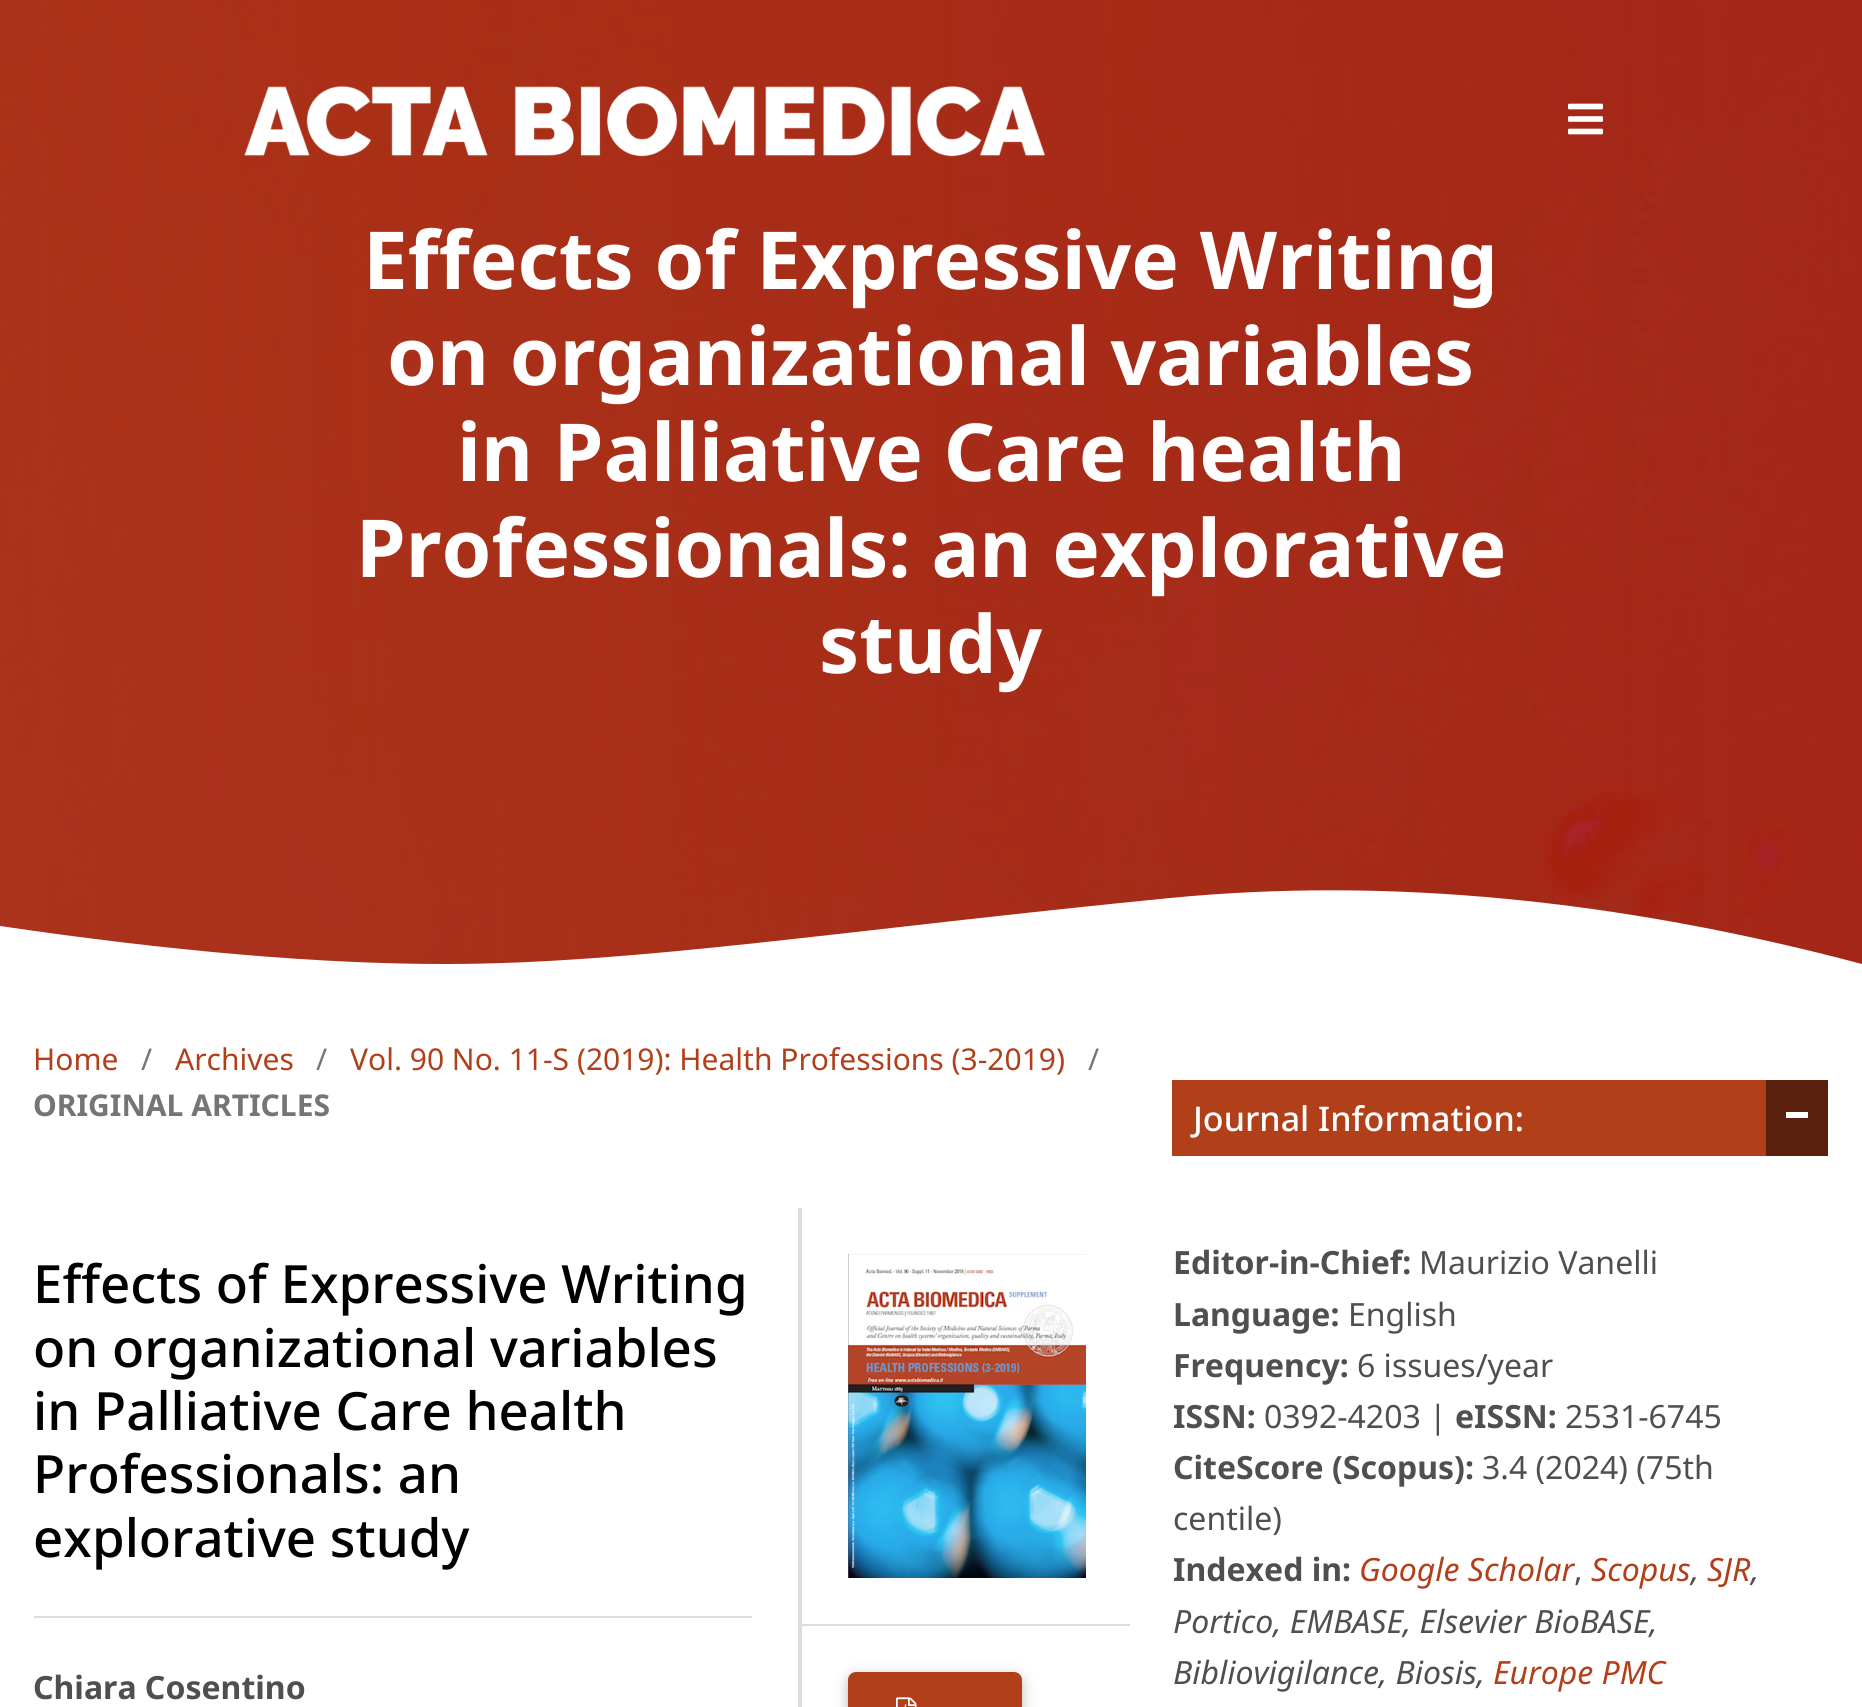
import math
import cairo

surface = cairo.ImageSurface(cairo.FORMAT_RGB24, 1862, 1707)
ctx = cairo.Context(surface)
options = cairo.FontOptions()
options.set_hint_metrics(cairo.HINT_METRICS_OFF)
options.set_hint_style(cairo.HINT_STYLE_NONE)
ctx.set_font_options(options)
ctx.set_miter_limit(4)


def round_rect(x, y, w, h, r):
    ctx.new_sub_path()
    for i, (u, v) in enumerate([(x + w - r, y + h - r), (x + r, y + h - r), (x + r, y + r), (x + w - r, y + r)]):
        ctx.arc(u, v, r, i * math.pi / 2, (i + 1) * math.pi / 2)
    ctx.close_path()


def shadow(x, y, w, h, r, blur, alpha):
    ctx.push_group_with_content(cairo.CONTENT_ALPHA)
    ctx.set_operator(cairo.OPERATOR_SOURCE)
    for i in range(15, -16, -2):
        e = blur * i / 6
        if min(w, h) + 2 * e > 0:
            ctx.set_source_rgba(0, 0, 0, alpha * math.erfc((i - 1) / 8.5) / 2)
            round_rect(x - e, y - e, w + 2 * e, h + 2 * e, max(0, min(r + e + blur * .6, min(w, h) / 2 + e)))
            ctx.fill()
    ctx.mask(ctx.pop_group())


def picture(path, x, y, w, h):
    ctx.save()
    ctx.set_source_surface(cairo.ImageSurface.create_from_png(path), x, y)
    ctx.rectangle(x, y, w, h)
    ctx.fill()
    ctx.restore()


ctx.set_source_rgb(1, 1, 1)
ctx.paint()
picture("img3.png", 0, 0, 1862, 964)
picture("img1.png", 244, 86, 801, 71)
picture("img2.png", 1568, 103, 35, 32)
ctx.select_font_face("Noto Sans", cairo.FONT_SLANT_NORMAL, cairo.FONT_WEIGHT_BOLD)
ctx.set_font_size(80)
ctx.set_source_rgb(1, 1, 1)
ctx.move_to(363, 289)
ctx.show_text("Effects of Expressive Writing")
ctx.move_to(387, 385)
ctx.show_text("on organizational variables")
ctx.move_to(457, 481)
ctx.show_text("in Palliative Care health")
ctx.move_to(356, 577)
ctx.show_text("Professionals: an explorative")
ctx.move_to(819, 673)
ctx.show_text("study")
ctx.save()
ctx.rectangle(0, 844, 1862, 180)
ctx.clip()
ctx.set_fill_rule(cairo.FILL_RULE_EVEN_ODD)
ctx.new_path()
ctx.move_to(0, 926)
ctx.curve_to(170, 951, 318, 964, 445, 964)
ctx.curve_to(635, 964, 844, 930, 1170, 898)
ctx.curve_to(1386, 877, 1617, 899, 1862, 964)
ctx.line_to(1862, 1147)
ctx.line_to(0, 1147)
ctx.close_path()
ctx.fill()
ctx.restore()
ctx.select_font_face("Noto Sans")
ctx.set_font_size(30)
ctx.set_source_rgb(0.694, 0.251, 0.102)
ctx.move_to(33, 1070)
ctx.show_text("Home")
ctx.set_source_rgb(0.459, 0.459, 0.459)
ctx.move_to(141, 1070)
ctx.show_text("/")
ctx.set_source_rgb(0.694, 0.251, 0.102)
ctx.move_to(175, 1070)
ctx.show_text("Archives")
ctx.set_source_rgb(0.459, 0.459, 0.459)
ctx.move_to(316, 1070)
ctx.show_text("/")
ctx.set_source_rgb(0.694, 0.251, 0.102)
ctx.move_to(350, 1070)
ctx.show_text("Vol. 90 No. 11-S (2019): Health Professions (3-2019)")
ctx.set_source_rgb(0.459, 0.459, 0.459)
ctx.move_to(1088, 1070)
ctx.show_text("/")
ctx.select_font_face("Noto Sans", cairo.FONT_SLANT_NORMAL, cairo.FONT_WEIGHT_BOLD)
ctx.move_to(33, 1116)
ctx.show_text("ORIGINAL ARTICLES")
ctx.set_source_rgb(0.867, 0.867, 0.867)
ctx.rectangle(798, 1208, 4, 499)
ctx.fill()
ctx.rectangle(34, 1616, 718, 2)
ctx.fill()
ctx.select_font_face("Noto Sans Medium")
ctx.set_font_size(52.75)
ctx.set_source_rgb(0, 0, 0)
ctx.move_to(33, 1303)
ctx.show_text("Effects of Expressive Writing")
ctx.move_to(33, 1367)
ctx.show_text("on organizational variables")
ctx.move_to(33, 1430)
ctx.show_text("in Palliative Care health")
ctx.move_to(33, 1493)
ctx.show_text("Professionals: an")
ctx.move_to(33, 1557)
ctx.show_text("explorative study")
ctx.select_font_face("Noto Sans", cairo.FONT_SLANT_NORMAL, cairo.FONT_WEIGHT_BOLD)
ctx.set_font_size(32)
ctx.set_source_rgb(0.31, 0.31, 0.31)
ctx.move_to(33, 1699)
ctx.show_text("Chiara Cosentino")
ctx.set_source_rgb(0.867, 0.867, 0.867)
ctx.rectangle(802, 1624, 328, 2)
ctx.fill()
picture("img4.png", 848, 1254, 238, 324)
ctx.set_source_rgb(0, 0, 0)
shadow(848, 1676, 174, 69, 8, 10, 0.1)
shadow(848, 1676, 174, 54, 8, 5, 0.2)
ctx.set_source_rgb(0.694, 0.251, 0.102)
round_rect(848, 1672, 174, 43, 8)
ctx.fill()
picture("img5.png", 896, 1697, 21, 10)
ctx.rectangle(1172, 1080, 594, 76)
ctx.fill()
ctx.select_font_face("Noto Sans Medium")
ctx.set_font_size(34)
ctx.set_source_rgb(1, 1, 1)
ctx.move_to(1193, 1131)
ctx.show_text("Journal Information:")
ctx.set_source_rgb(0.345, 0.125, 0.051)
ctx.rectangle(1766, 1080, 62, 76)
ctx.fill()
ctx.set_source_rgb(1, 1, 1)
ctx.rectangle(1786, 1112, 22, 6)
ctx.fill()
ctx.select_font_face("Noto Sans", cairo.FONT_SLANT_NORMAL, cairo.FONT_WEIGHT_BOLD)
ctx.set_font_size(32)
ctx.set_source_rgb(0.31, 0.31, 0.31)
ctx.move_to(1173, 1274)
ctx.show_text("Editor-in-Chief:")
ctx.select_font_face("Noto Sans")
ctx.move_to(1419, 1274)
ctx.show_text("Maurizio Vanelli")
ctx.select_font_face("Noto Sans", cairo.FONT_SLANT_NORMAL, cairo.FONT_WEIGHT_BOLD)
ctx.move_to(1173, 1326)
ctx.show_text("Language:")
ctx.select_font_face("Noto Sans")
ctx.move_to(1348, 1326)
ctx.show_text("English")
ctx.select_font_face("Noto Sans", cairo.FONT_SLANT_NORMAL, cairo.FONT_WEIGHT_BOLD)
ctx.move_to(1173, 1377)
ctx.show_text("Frequency:")
ctx.select_font_face("Noto Sans")
ctx.move_to(1357, 1377)
ctx.show_text("6 issues/year")
ctx.select_font_face("Noto Sans", cairo.FONT_SLANT_NORMAL, cairo.FONT_WEIGHT_BOLD)
ctx.move_to(1173, 1428)
ctx.show_text("ISSN:")
ctx.select_font_face("Noto Sans")
ctx.move_to(1264, 1428)
ctx.show_text("0392-4203 |")
ctx.select_font_face("Noto Sans", cairo.FONT_SLANT_NORMAL, cairo.FONT_WEIGHT_BOLD)
ctx.move_to(1455, 1428)
ctx.show_text("eISSN:")
ctx.select_font_face("Noto Sans")
ctx.move_to(1565, 1428)
ctx.show_text("2531-6745")
ctx.select_font_face("Noto Sans", cairo.FONT_SLANT_NORMAL, cairo.FONT_WEIGHT_BOLD)
ctx.move_to(1173, 1479)
ctx.show_text("CiteScore (Scopus):")
ctx.select_font_face("Noto Sans")
ctx.move_to(1482, 1479)
ctx.show_text("3.4 (2024) (75th")
ctx.move_to(1173, 1530)
ctx.show_text("centile)")
ctx.select_font_face("Noto Sans", cairo.FONT_SLANT_NORMAL, cairo.FONT_WEIGHT_BOLD)
ctx.move_to(1173, 1581)
ctx.show_text("Indexed in:")
ctx.select_font_face("Noto Sans", cairo.FONT_SLANT_ITALIC)
ctx.set_source_rgb(0.694, 0.251, 0.102)
ctx.move_to(1359, 1581)
ctx.show_text("Google Scholar")
ctx.select_font_face("Noto Sans")
ctx.set_source_rgb(0.31, 0.31, 0.31)
ctx.move_to(1574, 1581)
ctx.show_text(",")
ctx.select_font_face("Noto Sans", cairo.FONT_SLANT_ITALIC)
ctx.set_source_rgb(0.694, 0.251, 0.102)
ctx.move_to(1591, 1581)
ctx.show_text("Scopus")
ctx.set_source_rgb(0.31, 0.31, 0.31)
ctx.move_to(1691, 1581)
ctx.show_text(",")
ctx.set_source_rgb(0.694, 0.251, 0.102)
ctx.move_to(1707, 1581)
ctx.show_text("SJR")
ctx.set_source_rgb(0.31, 0.31, 0.31)
ctx.move_to(1751, 1581)
ctx.show_text(",")
ctx.move_to(1173, 1633)
ctx.show_text("Portico, EMBASE, Elsevier BioBASE,")
ctx.move_to(1173, 1684)
ctx.show_text("Bibliovigilance, Biosis,")
ctx.set_source_rgb(0.694, 0.251, 0.102)
ctx.move_to(1493, 1684)
ctx.show_text("Europe PMC")
surface.write_to_png("page.png")
